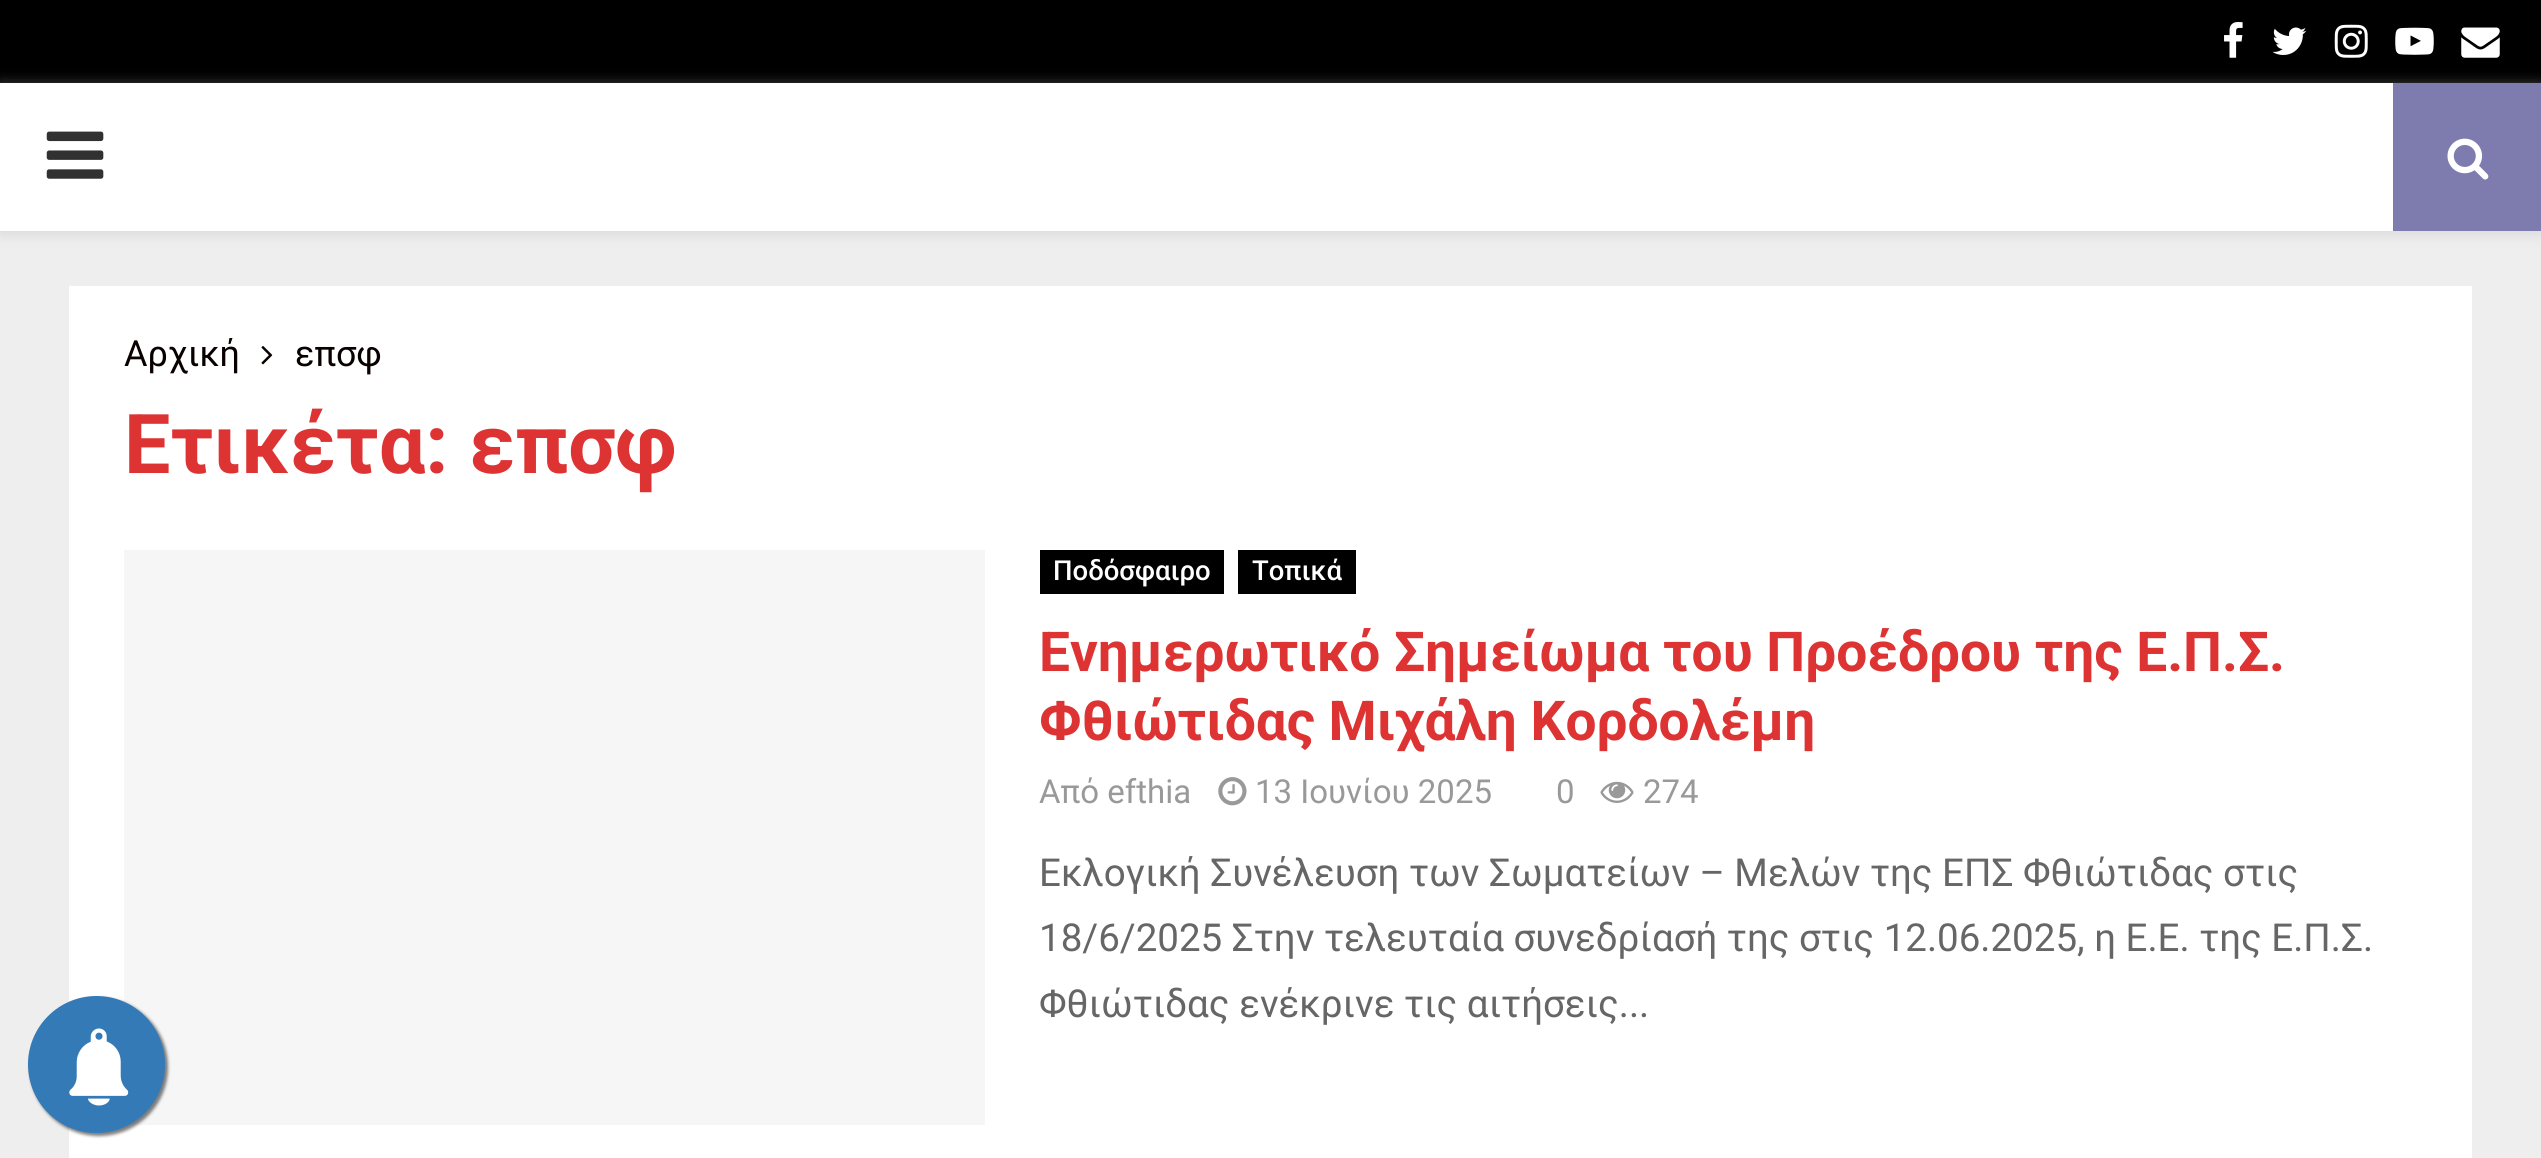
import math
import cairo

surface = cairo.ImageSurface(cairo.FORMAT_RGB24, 2541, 1158)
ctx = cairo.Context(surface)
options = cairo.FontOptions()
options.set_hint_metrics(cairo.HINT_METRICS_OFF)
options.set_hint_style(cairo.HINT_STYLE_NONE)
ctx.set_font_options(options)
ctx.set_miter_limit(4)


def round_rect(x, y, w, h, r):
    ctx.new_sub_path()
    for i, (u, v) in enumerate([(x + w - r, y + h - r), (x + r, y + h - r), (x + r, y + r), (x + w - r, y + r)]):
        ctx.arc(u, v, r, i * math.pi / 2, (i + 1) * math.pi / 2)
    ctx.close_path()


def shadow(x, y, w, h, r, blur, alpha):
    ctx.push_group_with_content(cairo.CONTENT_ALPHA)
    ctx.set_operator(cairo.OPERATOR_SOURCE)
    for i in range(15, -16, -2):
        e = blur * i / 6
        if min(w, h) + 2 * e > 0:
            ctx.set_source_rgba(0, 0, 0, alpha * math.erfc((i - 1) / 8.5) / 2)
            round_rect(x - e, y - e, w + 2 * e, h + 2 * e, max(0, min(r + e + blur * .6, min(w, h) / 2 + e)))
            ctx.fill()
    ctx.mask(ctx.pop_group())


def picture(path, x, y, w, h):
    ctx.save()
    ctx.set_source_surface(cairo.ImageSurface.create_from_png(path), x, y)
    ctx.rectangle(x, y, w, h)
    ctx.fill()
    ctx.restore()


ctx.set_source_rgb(0.933, 0.933, 0.933)
ctx.paint()
ctx.set_source_rgb(0, 0, 0)
ctx.rectangle(0, 0, 2541, 83)
ctx.fill()
picture("img1.png", 2224, 22, 19, 36)
picture("img2.png", 2272, 27, 35, 28)
picture("img3.png", 2334, 24, 34, 34)
picture("img4.png", 2395, 27, 39, 28)
picture("img5.png", 2461, 27, 39, 31)
ctx.set_source_rgb(0.745, 0.745, 0.745)
shadow(0, 85, 2541, 149, 0, 7, 0.46)
ctx.set_source_rgb(1, 1, 1)
ctx.rectangle(0, 83, 2393, 148)
ctx.fill()
picture("img6.png", 46, 131, 58, 48)
ctx.set_source_rgb(0.494, 0.486, 0.686)
ctx.rectangle(2393, 83, 148, 148)
ctx.fill()
picture("img7.png", 2447, 138, 42, 42)
ctx.set_source_rgb(1, 1, 1)
ctx.rectangle(69, 286, 2403, 872)
ctx.fill()
ctx.select_font_face("Roboto")
ctx.set_font_size(36)
ctx.set_source_rgb(0.039, 0, 0)
ctx.move_to(124, 366)
ctx.show_text("Αρχική")
picture("img8.png", 261, 346, 12, 19)
ctx.move_to(295, 366)
ctx.show_text("επσφ")
ctx.select_font_face("Roboto", cairo.FONT_SLANT_NORMAL, cairo.FONT_WEIGHT_BOLD)
ctx.set_font_size(82.5)
ctx.set_source_rgb(0.867, 0.2, 0.2)
ctx.move_to(124, 473)
ctx.show_text("Ετικέτα: επσφ")
ctx.set_source_rgb(0.961, 0.961, 0.961)
ctx.rectangle(124, 550, 861, 575)
ctx.fill()
ctx.set_source_rgb(0, 0, 0)
ctx.rectangle(1040, 550, 184, 44)
ctx.fill()
ctx.select_font_face("Roboto Medium")
ctx.set_font_size(27.5)
ctx.set_source_rgb(1, 1, 1)
ctx.move_to(1053, 580)
ctx.show_text("Ποδόσφαιρο")
ctx.set_source_rgb(0, 0, 0)
ctx.rectangle(1238, 550, 118, 44)
ctx.fill()
ctx.set_source_rgb(1, 1, 1)
ctx.move_to(1252, 580)
ctx.show_text("Τοπικά")
ctx.select_font_face("Roboto", cairo.FONT_SLANT_NORMAL, cairo.FONT_WEIGHT_BOLD)
ctx.set_font_size(55)
ctx.set_source_rgb(0.867, 0.2, 0.2)
ctx.move_to(1039, 671)
ctx.show_text("Ενημερωτικό Σημείωμα του Προέδρου της Ε.Π.Σ.")
ctx.move_to(1039, 740)
ctx.show_text("Φθιώτιδας Μιχάλη Κορδολέμη")
ctx.select_font_face("Roboto")
ctx.set_font_size(33)
ctx.set_source_rgb(0.6, 0.6, 0.6)
ctx.move_to(1039, 803)
ctx.show_text("Από efthia")
picture("img9.png", 1218, 777, 29, 29)
ctx.move_to(1255, 803)
ctx.show_text("13 Ιουνίου 2025")
ctx.move_to(1556, 803)
ctx.show_text("0")
picture("img10.png", 1600, 781, 34, 22)
ctx.move_to(1643, 803)
ctx.show_text("274")
ctx.set_font_size(38.5)
ctx.set_source_rgb(0.4, 0.4, 0.4)
ctx.move_to(1039, 886)
ctx.show_text("Εκλογική Συνέλευση των Σωματείων – Μελών της ΕΠΣ Φθιώτιδας στις")
ctx.move_to(1039, 951)
ctx.show_text("18/6/2025 Στην τελευταία συνεδρίασή της στις 12.06.2025, η Ε.Ε. της Ε.Π.Σ.")
ctx.move_to(1039, 1017)
ctx.show_text("Φθιώτιδας ενέκρινε τις αιτήσεις...")
ctx.set_source_rgb(0, 0, 0)
shadow(30, 998, 138, 138, 69, 1.5, 0.5)
ctx.set_source_rgb(0.2, 0.478, 0.718)
ctx.arc(96.5, 1064.5, 68.5, 0, 2 * math.pi)
ctx.fill()
picture("img11.png", 69, 1028, 60, 78)
surface.write_to_png("page.png")
